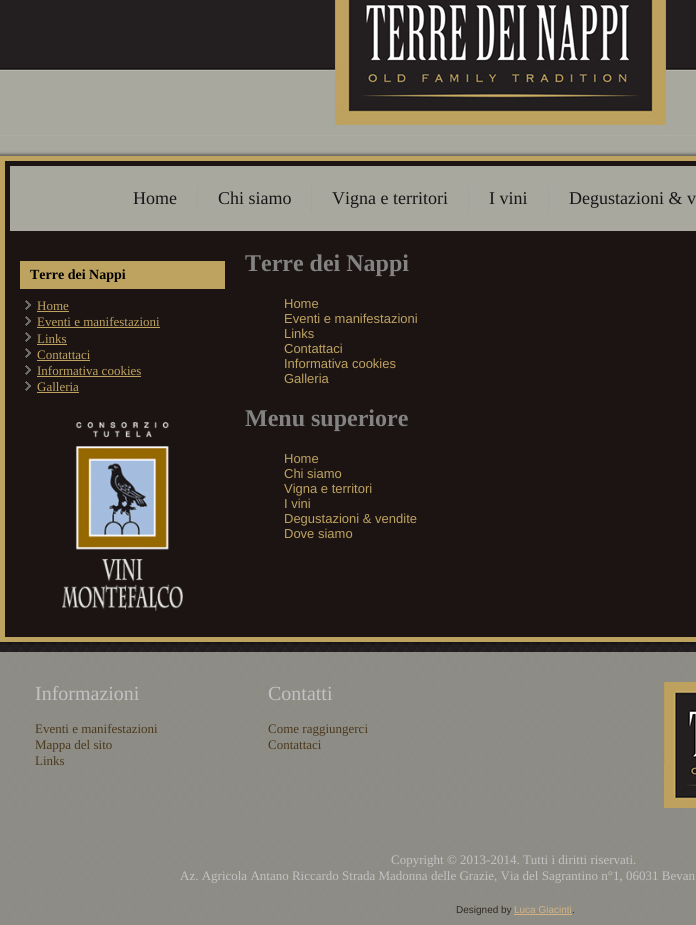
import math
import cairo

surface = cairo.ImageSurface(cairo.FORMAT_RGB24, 696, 925)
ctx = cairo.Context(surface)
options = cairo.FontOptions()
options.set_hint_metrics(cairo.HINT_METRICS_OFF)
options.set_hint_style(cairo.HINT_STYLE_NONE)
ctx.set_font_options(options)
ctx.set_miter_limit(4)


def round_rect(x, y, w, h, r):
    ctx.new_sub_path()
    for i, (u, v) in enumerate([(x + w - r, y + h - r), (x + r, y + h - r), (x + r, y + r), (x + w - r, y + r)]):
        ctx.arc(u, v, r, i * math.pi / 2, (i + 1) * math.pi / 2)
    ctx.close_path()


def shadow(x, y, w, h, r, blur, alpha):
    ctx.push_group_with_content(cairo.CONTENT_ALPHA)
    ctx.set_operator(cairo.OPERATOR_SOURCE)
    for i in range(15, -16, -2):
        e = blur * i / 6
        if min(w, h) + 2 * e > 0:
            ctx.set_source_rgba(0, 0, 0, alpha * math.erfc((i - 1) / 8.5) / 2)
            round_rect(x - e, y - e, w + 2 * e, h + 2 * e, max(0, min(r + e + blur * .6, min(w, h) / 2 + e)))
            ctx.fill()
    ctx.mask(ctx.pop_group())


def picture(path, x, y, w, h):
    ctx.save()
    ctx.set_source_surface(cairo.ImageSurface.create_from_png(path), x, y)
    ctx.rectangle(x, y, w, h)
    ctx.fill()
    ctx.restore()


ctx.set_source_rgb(0.137, 0.122, 0.125)
ctx.paint()
picture("img1.png", 2, 642, 694, 283)
picture("img2.png", 0, 0, 696, 156)
ctx.set_source_rgb(0, 0, 0)
shadow(-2, 154, 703, 490, 0, 1.5, 0.4)
ctx.set_source_rgb(0.11, 0.082, 0.078)
ctx.rectangle(2.5, 158.5, 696, 481)
ctx.fill_preserve()
ctx.set_source_rgb(0.745, 0.635, 0.376)
ctx.set_line_width(5)
ctx.stroke()
ctx.set_source_rgb(0.659, 0.659, 0.624)
ctx.rectangle(10, 166, 686, 65)
ctx.fill()
ctx.select_font_face("Liberation Serif")
ctx.set_font_size(18)
ctx.set_source_rgb(0.086, 0.086, 0.086)
ctx.move_to(133, 204)
ctx.show_text("Home")
picture("img3.png", 197, 186, 1, 25)
ctx.move_to(218, 204)
ctx.show_text("Chi siamo")
picture("img3.png", 311, 186, 1, 25)
ctx.move_to(332, 204)
ctx.show_text("Vigna e territori")
picture("img3.png", 468, 186, 1, 25)
ctx.move_to(489, 204)
ctx.show_text("I vini")
picture("img3.png", 548, 186, 1, 25)
ctx.move_to(569, 204)
ctx.show_text("Degustazioni & v")
ctx.set_source_rgb(0.745, 0.635, 0.376)
ctx.rectangle(20, 261, 205, 28)
ctx.fill()
ctx.select_font_face("Liberation Serif", cairo.FONT_SLANT_NORMAL, cairo.FONT_WEIGHT_BOLD)
ctx.set_font_size(14)
ctx.set_source_rgb(0, 0, 0)
ctx.move_to(30, 279)
ctx.show_text("Terre dei Nappi")
picture("img4.png", 25, 300, 6, 10)
ctx.select_font_face("Liberation Serif")
ctx.set_font_size(13)
ctx.set_source_rgb(0.745, 0.635, 0.376)
ctx.move_to(37, 310)
ctx.show_text("Home")
ctx.rectangle(37, 311, 32, 1)
ctx.fill()
picture("img4.png", 25, 316, 6, 10)
ctx.move_to(37, 326)
ctx.show_text("Eventi e manifestazioni")
ctx.rectangle(37, 327, 123, 1)
ctx.fill()
picture("img4.png", 25, 332, 6, 10)
ctx.move_to(37, 343)
ctx.show_text("Links")
ctx.rectangle(37, 344, 30, 1)
ctx.fill()
picture("img4.png", 25, 348, 6, 10)
ctx.move_to(37, 359)
ctx.show_text("Contattaci")
ctx.rectangle(37, 360, 53, 1)
ctx.fill()
picture("img4.png", 25, 365, 6, 10)
ctx.move_to(37, 375)
ctx.show_text("Informativa cookies")
ctx.rectangle(37, 376, 104, 1)
ctx.fill()
picture("img4.png", 25, 381, 6, 10)
ctx.move_to(37, 391)
ctx.show_text("Galleria")
ctx.rectangle(37, 392, 42, 1)
ctx.fill()
picture("img5.png", 62, 422, 121, 189)
ctx.select_font_face("Liberation Serif", cairo.FONT_SLANT_NORMAL, cairo.FONT_WEIGHT_BOLD)
ctx.set_font_size(24)
ctx.set_source_rgb(0.514, 0.514, 0.514)
ctx.move_to(245, 271)
ctx.show_text("Terre dei Nappi")
ctx.select_font_face("Liberation Sans")
ctx.set_font_size(13)
ctx.set_source_rgb(0.745, 0.635, 0.376)
ctx.move_to(284, 308)
ctx.show_text("Home")
ctx.move_to(284, 323)
ctx.show_text("Eventi e manifestazioni")
ctx.move_to(284, 338)
ctx.show_text("Links")
ctx.move_to(284, 353)
ctx.show_text("Contattaci")
ctx.move_to(284, 368)
ctx.show_text("Informativa cookies")
ctx.move_to(284, 383)
ctx.show_text("Galleria")
ctx.select_font_face("Liberation Serif", cairo.FONT_SLANT_NORMAL, cairo.FONT_WEIGHT_BOLD)
ctx.set_font_size(24)
ctx.set_source_rgb(0.514, 0.514, 0.514)
ctx.move_to(245, 426)
ctx.show_text("Menu superiore")
ctx.select_font_face("Liberation Sans")
ctx.set_font_size(13)
ctx.set_source_rgb(0.745, 0.635, 0.376)
ctx.move_to(284, 463)
ctx.show_text("Home")
ctx.move_to(284, 478)
ctx.show_text("Chi siamo")
ctx.move_to(284, 493)
ctx.show_text("Vigna e territori")
ctx.move_to(284, 508)
ctx.show_text("I vini")
ctx.move_to(284, 523)
ctx.show_text("Degustazioni & vendite")
ctx.move_to(284, 538)
ctx.show_text("Dove siamo")
ctx.set_source_rgba(0.659, 0.659, 0.624, 0.8)
ctx.rectangle(0, 652, 696, 273)
ctx.fill()
ctx.select_font_face("Liberation Serif")
ctx.set_font_size(20)
ctx.set_source_rgb(0.761, 0.761, 0.761)
ctx.move_to(35, 700)
ctx.show_text("Informazioni")
ctx.set_font_size(13)
ctx.set_source_rgb(0.29, 0.224, 0.11)
ctx.move_to(35, 733)
ctx.show_text("Eventi e manifestazioni")
ctx.move_to(35, 749)
ctx.show_text("Mappa del sito")
ctx.move_to(35, 765)
ctx.show_text("Links")
ctx.set_font_size(20)
ctx.set_source_rgb(0.761, 0.761, 0.761)
ctx.move_to(268, 700)
ctx.show_text("Contatti")
ctx.set_font_size(13)
ctx.set_source_rgb(0.29, 0.224, 0.11)
ctx.move_to(268, 733)
ctx.show_text("Come raggiungerci")
ctx.move_to(268, 749)
ctx.show_text("Contattaci")
picture("img6.png", 664, 682, 32, 126)
ctx.set_source_rgb(0.761, 0.761, 0.761)
ctx.move_to(391, 864)
ctx.show_text("Copyright © 2013-2014. Tutti i diritti riservati.")
ctx.move_to(180, 880)
ctx.show_text("Az. Agricola Antano Riccardo Strada Madonna delle Grazie, Via del Sagrantino n°1, 06031 Bevan")
ctx.select_font_face("Liberation Sans")
ctx.set_font_size(10)
ctx.set_source_rgb(0.188, 0.169, 0.129)
ctx.move_to(456, 913)
ctx.show_text("Designed by")
ctx.set_source_rgb(0.82, 0.706, 0.51)
ctx.move_to(514, 913)
ctx.show_text("Luca Giacinti")
ctx.set_source_rgb(0.188, 0.169, 0.129)
ctx.move_to(572, 913)
ctx.show_text(".")
ctx.set_source_rgb(0.82, 0.706, 0.51)
ctx.rectangle(514, 914, 58, 1)
ctx.fill()
surface.write_to_png("page.png")
